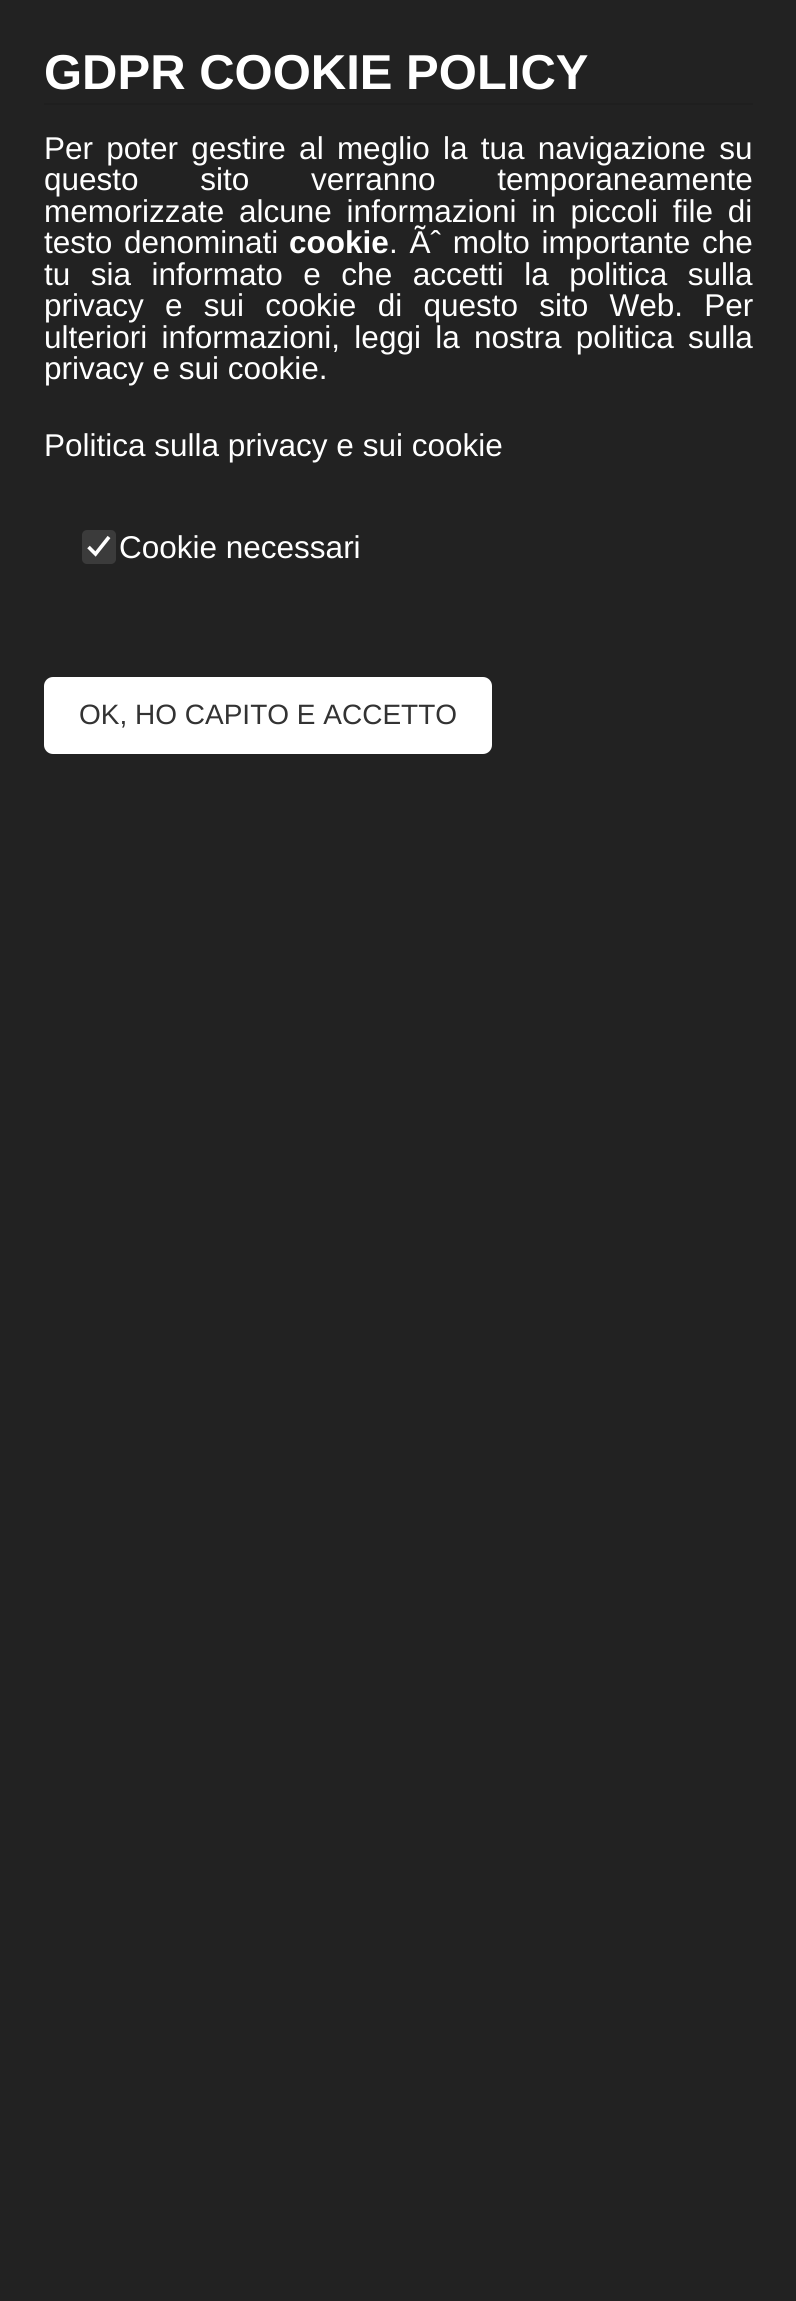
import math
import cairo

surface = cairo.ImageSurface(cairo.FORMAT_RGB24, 796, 2301)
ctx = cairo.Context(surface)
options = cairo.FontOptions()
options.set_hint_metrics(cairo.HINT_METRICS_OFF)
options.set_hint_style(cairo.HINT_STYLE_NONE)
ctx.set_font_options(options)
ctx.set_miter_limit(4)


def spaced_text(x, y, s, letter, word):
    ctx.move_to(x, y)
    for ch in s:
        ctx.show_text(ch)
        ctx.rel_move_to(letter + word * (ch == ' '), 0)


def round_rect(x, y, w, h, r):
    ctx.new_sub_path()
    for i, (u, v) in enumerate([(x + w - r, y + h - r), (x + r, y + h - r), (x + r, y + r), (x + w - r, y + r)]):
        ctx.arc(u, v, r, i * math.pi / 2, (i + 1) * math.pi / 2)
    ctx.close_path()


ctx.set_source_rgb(0.133, 0.133, 0.133)
ctx.paint()
ctx.select_font_face("Liberation Sans", cairo.FONT_SLANT_NORMAL, cairo.FONT_WEIGHT_BOLD)
ctx.set_font_size(49)
ctx.set_source_rgb(1, 1, 1)
ctx.move_to(44, 89)
ctx.show_text("GDPR COOKIE POLICY")
ctx.set_source_rgb(0.122, 0.122, 0.122)
ctx.rectangle(44, 103, 709, 2)
ctx.fill()
ctx.select_font_face("Liberation Sans")
ctx.set_font_size(31.5)
ctx.set_source_rgb(1, 1, 1)
spaced_text(44, 159, "Per poter gestire al meglio la tua navigazione su", 0, 4.5)
spaced_text(44, 190, "questo sito verranno temporaneamente", 0, 53)
spaced_text(44, 222, "memorizzate alcune informazioni in piccoli file di", 0, 6)
spaced_text(44, 253, "testo denominati", 0, 3)
ctx.select_font_face("Liberation Sans", cairo.FONT_SLANT_NORMAL, cairo.FONT_WEIGHT_BOLD)
ctx.move_to(289, 253)
ctx.show_text("cookie")
ctx.select_font_face("Liberation Sans")
spaced_text(389, 253, ". Ãˆ molto importante che", 0, 3)
spaced_text(44, 285, "tu sia informato e che accetti la politica sulla", 0, 11.75)
spaced_text(44, 316, "privacy e sui cookie di questo sito Web. Per", 0, 12.5)
spaced_text(44, 348, "ulteriori informazioni, leggi la nostra politica sulla", 0, 5.5)
ctx.move_to(44, 379)
ctx.show_text("privacy e sui cookie.")
ctx.move_to(44, 456)
ctx.show_text("Politica sulla privacy e sui cookie")
ctx.set_source_rgb(0.231, 0.231, 0.231)
round_rect(82, 530, 34, 34, 5)
ctx.fill()
ctx.new_path()
ctx.move_to(88.5, 547)
ctx.line_to(95.5, 554)
ctx.line_to(109, 537)
ctx.set_source_rgb(1, 1, 1)
ctx.set_line_width(3.6)
ctx.stroke()
ctx.move_to(119, 558)
ctx.show_text("Cookie necessari")
round_rect(44, 677, 448, 77, 9)
ctx.fill()
ctx.set_font_size(28)
ctx.set_source_rgb(0.2, 0.2, 0.2)
ctx.move_to(79, 724)
ctx.show_text("OK, HO CAPITO E ACCETTO")
surface.write_to_png("page.png")
